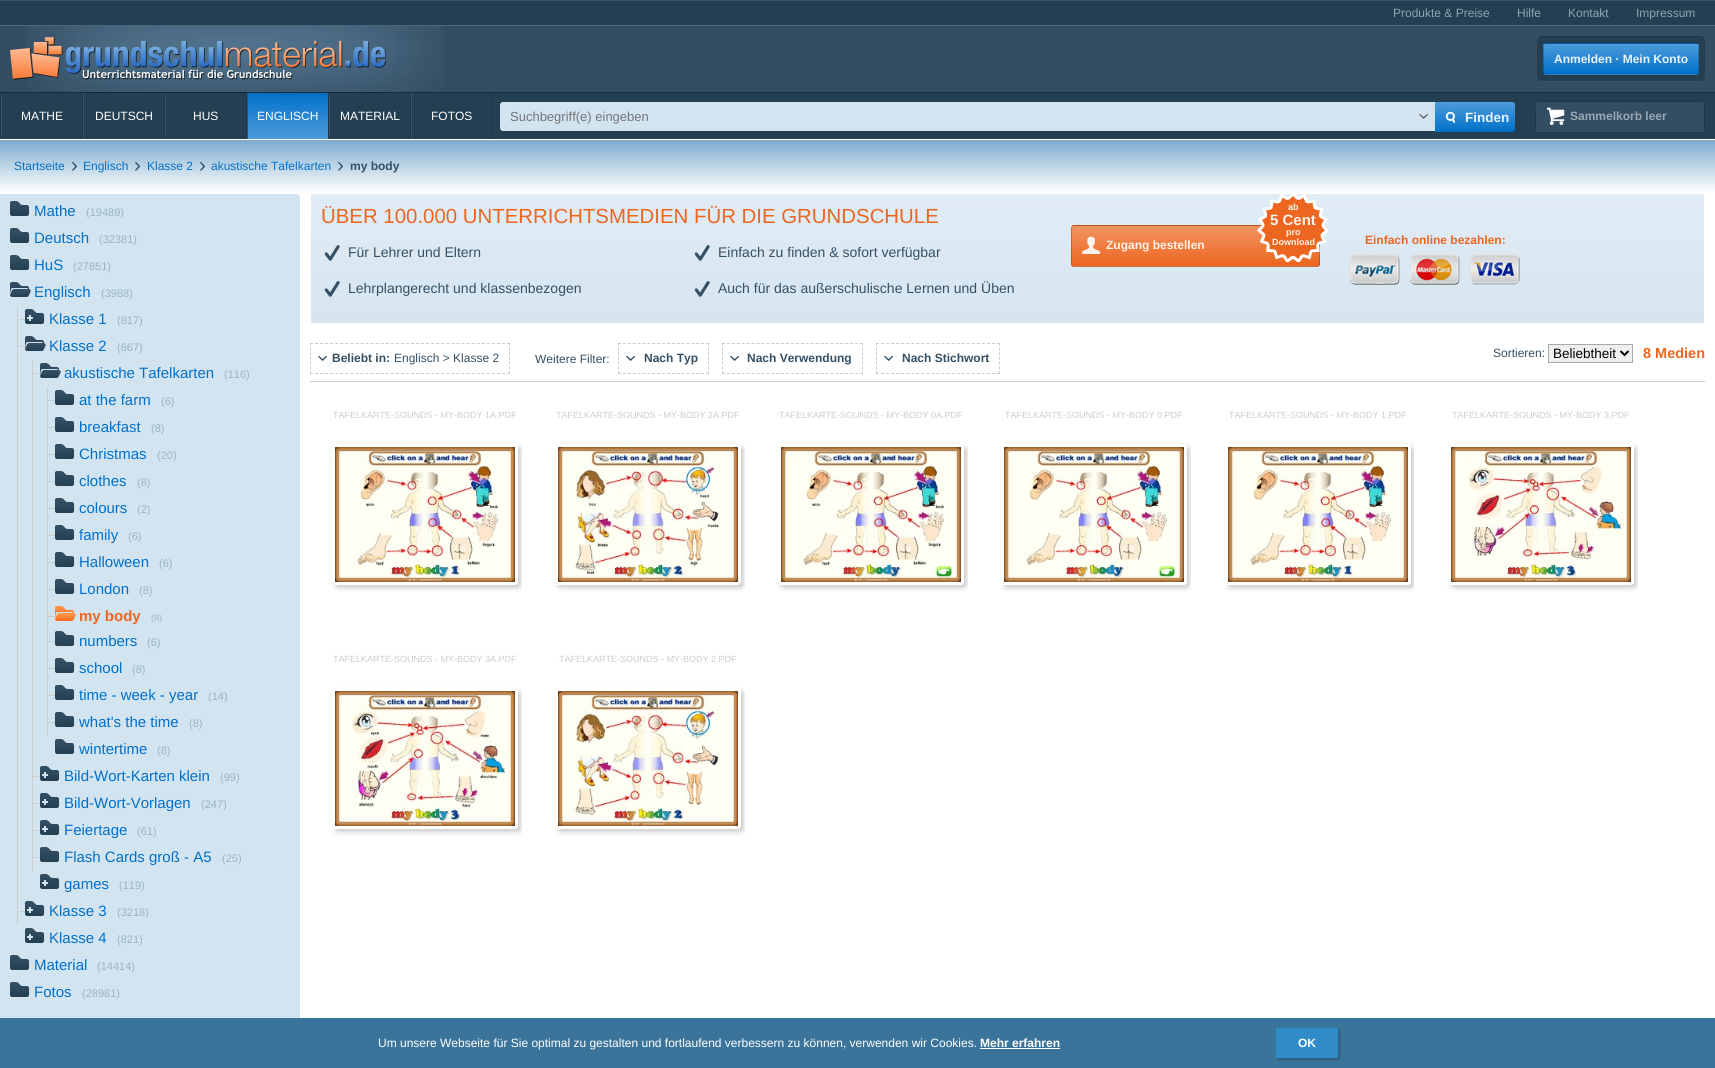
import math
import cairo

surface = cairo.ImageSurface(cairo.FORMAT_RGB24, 1715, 1068)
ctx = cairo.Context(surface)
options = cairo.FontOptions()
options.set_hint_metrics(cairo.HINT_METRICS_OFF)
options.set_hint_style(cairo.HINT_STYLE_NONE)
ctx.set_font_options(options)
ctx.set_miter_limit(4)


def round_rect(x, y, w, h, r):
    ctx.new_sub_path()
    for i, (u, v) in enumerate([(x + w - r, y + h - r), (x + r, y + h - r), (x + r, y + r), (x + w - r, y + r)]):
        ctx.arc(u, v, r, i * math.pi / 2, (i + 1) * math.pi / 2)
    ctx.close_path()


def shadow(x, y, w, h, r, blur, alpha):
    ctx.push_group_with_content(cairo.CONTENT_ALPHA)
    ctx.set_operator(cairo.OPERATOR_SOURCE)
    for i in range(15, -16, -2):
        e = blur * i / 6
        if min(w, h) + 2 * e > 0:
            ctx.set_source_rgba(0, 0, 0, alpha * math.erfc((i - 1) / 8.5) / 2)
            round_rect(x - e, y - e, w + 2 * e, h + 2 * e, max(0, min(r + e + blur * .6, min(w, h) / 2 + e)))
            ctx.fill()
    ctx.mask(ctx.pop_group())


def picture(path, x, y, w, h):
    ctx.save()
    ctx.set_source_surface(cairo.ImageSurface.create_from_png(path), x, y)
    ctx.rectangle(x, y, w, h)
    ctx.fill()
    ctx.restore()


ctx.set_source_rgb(1, 1, 1)
ctx.paint()
ctx.set_source_rgb(0.204, 0.329, 0.42)
ctx.rectangle(0, 0, 1715, 1)
ctx.fill()
ctx.set_source_rgb(0.145, 0.247, 0.322)
ctx.rectangle(0, 1, 1715, 24)
ctx.fill()
ctx.set_source_rgb(0.302, 0.404, 0.471)
ctx.rectangle(0, 25, 1715, 1)
ctx.fill()
ctx.select_font_face("Liberation Sans")
ctx.set_font_size(12)
ctx.set_source_rgb(0.549, 0.643, 0.698)
ctx.move_to(1393, 17)
ctx.show_text("Produkte & Preise")
ctx.move_to(1517, 17)
ctx.show_text("Hilfe")
ctx.move_to(1568, 17)
ctx.show_text("Kontakt")
ctx.move_to(1636, 17)
ctx.show_text("Impressum")
ctx.set_source_rgb(0.2, 0.306, 0.388)
ctx.rectangle(0, 26, 1715, 66)
ctx.fill()
ctx.set_source_rgb(0.075, 0.173, 0.235)
ctx.rectangle(0, 92, 1715, 1)
ctx.fill()
picture("img1.png", 27, 26, 417, 66)
picture("img2.png", 10, 37, 376, 43)
ctx.set_source_rgb(0.145, 0.247, 0.322)
round_rect(1537, 36, 168, 46, 5)
ctx.fill()
ctx.set_source_rgb(0.11, 0.212, 0.286)
ctx.new_path()
ctx.move_to(1542, 36)
ctx.curve_to(1539, 36, 1537, 38, 1537, 41)
ctx.curve_to(1537, 39, 1539, 37, 1542, 37)
ctx.line_to(1700, 37)
ctx.curve_to(1703, 37, 1705, 39, 1705, 41)
ctx.curve_to(1705, 38, 1703, 36, 1700, 36)
ctx.close_path()
ctx.fill()
ctx.set_source_rgb(0.204, 0.329, 0.42)
ctx.new_path()
ctx.move_to(1700, 82)
ctx.curve_to(1703, 82, 1705, 80, 1705, 77)
ctx.curve_to(1705, 79, 1703, 81, 1700, 81)
ctx.line_to(1542, 81)
ctx.curve_to(1539, 81, 1537, 79, 1537, 77)
ctx.curve_to(1537, 80, 1539, 82, 1542, 82)
ctx.close_path()
ctx.fill()
ctx.set_source_rgb(0.004, 0.439, 0.792)
round_rect(1543, 43, 156, 32, 3)
ctx.fill()
gradient = cairo.LinearGradient(1621, 44, 1621, 74)
gradient.add_color_stop_rgba(0, 1, 1, 1, 0.3)
gradient.add_color_stop_rgba(1, 1, 1, 1, 0)
ctx.set_source(gradient)
ctx.rectangle(1543, 44, 156, 28)
ctx.fill()
ctx.save()
round_rect(1543, 43, 156, 32, 3)
ctx.clip()
gradient = cairo.LinearGradient(1621, 74, 1621, 104)
gradient.add_color_stop_rgba(0, 1, 1, 1, 0.3)
gradient.add_color_stop_rgba(1, 1, 1, 1, 0)
ctx.set_source(gradient)
ctx.rectangle(1543, 74, 156, 1)
ctx.fill()
ctx.restore()
round_rect(1543.5, 43.5, 155, 31, 2.5)
ctx.set_source_rgba(0, 0, 0, 0.2)
ctx.set_line_width(1)
ctx.stroke()
ctx.select_font_face("Liberation Sans", cairo.FONT_SLANT_NORMAL, cairo.FONT_WEIGHT_BOLD)
ctx.set_source_rgb(0.914, 0.953, 0.98)
ctx.move_to(1554, 63)
ctx.show_text("Anmelden · Mein Konto")
ctx.set_source_rgb(0.145, 0.247, 0.322)
ctx.rectangle(2, 93, 1713, 46)
ctx.fill()
ctx.set_source_rgb(0.114, 0.208, 0.267)
ctx.rectangle(0, 93, 1, 46)
ctx.fill()
ctx.rectangle(82, 93, 1, 46)
ctx.fill()
ctx.set_source_rgb(0.204, 0.329, 0.42)
ctx.rectangle(1, 93, 1, 46)
ctx.fill()
ctx.select_font_face("Liberation Sans")
ctx.set_source_rgb(1, 1, 1)
ctx.move_to(21, 120)
ctx.show_text("MATHE")
ctx.set_source_rgb(0.114, 0.208, 0.267)
ctx.rectangle(164, 93, 1, 46)
ctx.fill()
ctx.set_source_rgb(0.204, 0.329, 0.42)
ctx.rectangle(83, 93, 1, 46)
ctx.fill()
ctx.set_source_rgb(1, 1, 1)
ctx.move_to(95, 120)
ctx.show_text("DEUTSCH")
ctx.set_source_rgb(0.114, 0.208, 0.267)
ctx.rectangle(246, 93, 1, 46)
ctx.fill()
ctx.set_source_rgb(0.204, 0.329, 0.42)
ctx.rectangle(165, 93, 1, 46)
ctx.fill()
ctx.set_source_rgb(1, 1, 1)
ctx.move_to(193, 120)
ctx.show_text("HUS")
gradient = cairo.LinearGradient(288, 93, 288, 139)
gradient.add_color_stop_rgba(0, 0.004, 0.439, 0.792, 1)
gradient.add_color_stop_rgba(1, 0.302, 0.608, 0.855, 1)
ctx.set_source(gradient)
ctx.rectangle(248, 93, 80, 46)
ctx.fill()
ctx.set_source_rgb(0.114, 0.208, 0.267)
ctx.rectangle(328, 93, 1, 46)
ctx.fill()
ctx.set_source_rgb(0.204, 0.329, 0.42)
ctx.rectangle(247, 93, 1, 46)
ctx.fill()
ctx.set_source_rgb(1, 1, 1)
ctx.move_to(257, 120)
ctx.show_text("ENGLISCH")
ctx.set_source_rgb(0.114, 0.208, 0.267)
ctx.rectangle(410, 93, 1, 46)
ctx.fill()
ctx.set_source_rgb(0.204, 0.329, 0.42)
ctx.rectangle(329, 93, 1, 46)
ctx.fill()
ctx.set_source_rgb(1, 1, 1)
ctx.move_to(340, 120)
ctx.show_text("MATERIAL")
ctx.set_source_rgb(0.114, 0.208, 0.267)
ctx.rectangle(492, 93, 1, 46)
ctx.fill()
ctx.set_source_rgb(0.204, 0.329, 0.42)
ctx.rectangle(411, 93, 1, 46)
ctx.fill()
ctx.set_source_rgb(1, 1, 1)
ctx.move_to(431, 120)
ctx.show_text("FOTOS")
ctx.set_source_rgb(0.2, 0.306, 0.388)
round_rect(1535, 101, 170, 31, 3)
ctx.fill()
ctx.new_path()
ctx.move_to(1704, 102)
ctx.curve_to(1704, 102.5, 1704.5, 103.5, 1704.5, 104)
ctx.line_to(1704.5, 129)
ctx.curve_to(1704.5, 129.5, 1704, 130.5, 1704, 131)
ctx.set_source_rgb(0.114, 0.208, 0.267)
ctx.stroke()
ctx.new_path()
ctx.move_to(1704, 131)
ctx.line_to(1702, 131.5)
ctx.line_to(1538, 131.5)
ctx.line_to(1536, 131)
ctx.set_source_rgb(0.204, 0.329, 0.42)
ctx.stroke()
ctx.new_path()
ctx.move_to(1536, 131)
ctx.line_to(1535.5, 129)
ctx.line_to(1535.5, 112.5)
ctx.curve_to(1535.5, 110.5, 1533.5, 101.5, 1538, 101.5)
ctx.line_to(1702.5, 101.5)
ctx.line_to(1704, 102)
ctx.set_source_rgb(0.11, 0.212, 0.286)
ctx.stroke()
picture("img3.png", 1546, 107, 19, 18)
ctx.select_font_face("Liberation Sans", cairo.FONT_SLANT_NORMAL, cairo.FONT_WEIGHT_BOLD)
ctx.set_source_rgb(0.6, 0.655, 0.694)
ctx.move_to(1570, 120)
ctx.show_text("Sammelkorb leer")
ctx.set_source_rgb(0.827, 0.894, 0.945)
round_rect(500, 102, 1010, 29, 3)
ctx.fill()
ctx.select_font_face("Liberation Sans")
ctx.set_font_size(13)
ctx.set_source_rgb(0.459, 0.459, 0.459)
ctx.move_to(510, 121)
ctx.show_text("Suchbegriff(e) eingeben")
picture("img4.png", 1419, 113, 9, 6)
ctx.set_source_rgb(0.004, 0.439, 0.792)
ctx.new_path()
ctx.move_to(1435, 102)
ctx.line_to(1512, 102)
ctx.curve_to(1513.5, 102, 1515, 103.5, 1515, 105)
ctx.line_to(1515, 129)
ctx.curve_to(1515, 130.5, 1513.5, 132, 1512, 132)
ctx.line_to(1435, 132)
ctx.close_path()
ctx.fill()
picture("img5.png", 1435, 102, 80, 28)
ctx.select_font_face("Liberation Sans", cairo.FONT_SLANT_NORMAL, cairo.FONT_WEIGHT_BOLD)
ctx.set_font_size(13.5)
ctx.set_source_rgb(0.914, 0.953, 0.98)
ctx.move_to(1465, 122)
ctx.show_text("Finden")
gradient = cairo.LinearGradient(858, 140, 858, 193)
gradient.add_color_stop_rgba(0, 0.486, 0.671, 0.804, 1)
gradient.add_color_stop_rgba(1, 1, 1, 1, 1)
ctx.set_source(gradient)
ctx.rectangle(0, 140, 1715, 52)
ctx.fill()
ctx.select_font_face("Liberation Sans")
ctx.set_font_size(12)
ctx.set_source_rgb(0.004, 0.439, 0.792)
ctx.move_to(14, 170)
ctx.show_text("Startseite")
picture("img6.png", 72, 162, 5, 9)
ctx.move_to(83, 170)
ctx.show_text("Englisch")
picture("img6.png", 135, 162, 5, 9)
ctx.move_to(147, 170)
ctx.show_text("Klasse 2")
picture("img6.png", 200, 162, 5, 9)
ctx.move_to(211, 170)
ctx.show_text("akustische Tafelkarten")
picture("img6.png", 338, 162, 5, 9)
ctx.select_font_face("Liberation Sans", cairo.FONT_SLANT_NORMAL, cairo.FONT_WEIGHT_BOLD)
ctx.set_source_rgb(0.208, 0.314, 0.396)
ctx.move_to(350, 170)
ctx.show_text("my body")
ctx.set_source_rgb(0.827, 0.894, 0.945)
ctx.new_path()
ctx.move_to(0, 194)
ctx.line_to(297, 194)
ctx.curve_to(298.5, 194, 300, 195.5, 300, 197)
ctx.line_to(300, 1068)
ctx.line_to(0, 1068)
ctx.close_path()
ctx.fill()
picture("img7.png", 10, 201, 20, 15)
ctx.select_font_face("Liberation Sans")
ctx.set_font_size(15)
ctx.set_source_rgb(0.004, 0.439, 0.792)
ctx.move_to(34, 216)
ctx.show_text("Mathe")
ctx.set_font_size(11)
ctx.set_source_rgb(0.596, 0.702, 0.776)
ctx.move_to(86, 216)
ctx.show_text("(19489)")
picture("img7.png", 10, 228, 20, 15)
ctx.set_font_size(15)
ctx.set_source_rgb(0.004, 0.439, 0.792)
ctx.move_to(34, 243)
ctx.show_text("Deutsch")
ctx.set_font_size(11)
ctx.set_source_rgb(0.596, 0.702, 0.776)
ctx.move_to(99, 243)
ctx.show_text("(32381)")
picture("img7.png", 10, 255, 20, 15)
ctx.set_font_size(15)
ctx.set_source_rgb(0.004, 0.439, 0.792)
ctx.move_to(34, 270)
ctx.show_text("HuS")
ctx.set_font_size(11)
ctx.set_source_rgb(0.596, 0.702, 0.776)
ctx.move_to(73, 270)
ctx.show_text("(27851)")
picture("img8.png", 10, 282, 21, 15)
ctx.set_font_size(15)
ctx.set_source_rgb(0.004, 0.439, 0.792)
ctx.move_to(34, 297)
ctx.show_text("Englisch")
ctx.set_font_size(11)
ctx.set_source_rgb(0.596, 0.702, 0.776)
ctx.move_to(101, 297)
ctx.show_text("(3988)")
picture("img9.png", 17, 306, 8, 27)
picture("img10.png", 25, 309, 20, 15)
ctx.set_font_size(15)
ctx.set_source_rgb(0.004, 0.439, 0.792)
ctx.move_to(49, 324)
ctx.show_text("Klasse 1")
ctx.set_font_size(11)
ctx.set_source_rgb(0.596, 0.702, 0.776)
ctx.move_to(117, 324)
ctx.show_text("(817)")
picture("img11.png", 17, 333, 9, 565)
picture("img12.png", 25, 336, 21, 15)
ctx.set_font_size(15)
ctx.set_source_rgb(0.004, 0.439, 0.792)
ctx.move_to(49, 351)
ctx.show_text("Klasse 2")
ctx.set_font_size(11)
ctx.set_source_rgb(0.596, 0.702, 0.776)
ctx.move_to(117, 351)
ctx.show_text("(667)")
picture("img13.png", 32, 360, 9, 403)
picture("img12.png", 40, 363, 21, 15)
ctx.set_font_size(15)
ctx.set_source_rgb(0.004, 0.439, 0.792)
ctx.move_to(64, 378)
ctx.show_text("akustische Tafelkarten")
ctx.set_font_size(11)
ctx.set_source_rgb(0.596, 0.702, 0.776)
ctx.move_to(224, 378)
ctx.show_text("(116)")
picture("img9.png", 47, 387, 8, 27)
picture("img7.png", 55, 390, 20, 15)
ctx.set_font_size(15)
ctx.set_source_rgb(0.004, 0.439, 0.792)
ctx.move_to(79, 405)
ctx.show_text("at the farm")
ctx.set_font_size(11)
ctx.set_source_rgb(0.596, 0.702, 0.776)
ctx.move_to(161, 405)
ctx.show_text("(6)")
picture("img9.png", 47, 414, 8, 27)
picture("img7.png", 55, 417, 20, 15)
ctx.set_font_size(15)
ctx.set_source_rgb(0.004, 0.439, 0.792)
ctx.move_to(79, 432)
ctx.show_text("breakfast")
ctx.set_font_size(11)
ctx.set_source_rgb(0.596, 0.702, 0.776)
ctx.move_to(151, 432)
ctx.show_text("(8)")
picture("img9.png", 47, 441, 8, 27)
picture("img7.png", 55, 444, 20, 15)
ctx.set_font_size(15)
ctx.set_source_rgb(0.004, 0.439, 0.792)
ctx.move_to(79, 459)
ctx.show_text("Christmas")
ctx.set_font_size(11)
ctx.set_source_rgb(0.596, 0.702, 0.776)
ctx.move_to(157, 459)
ctx.show_text("(20)")
picture("img9.png", 47, 468, 8, 27)
picture("img7.png", 55, 471, 20, 15)
ctx.set_font_size(15)
ctx.set_source_rgb(0.004, 0.439, 0.792)
ctx.move_to(79, 486)
ctx.show_text("clothes")
ctx.set_font_size(11)
ctx.set_source_rgb(0.596, 0.702, 0.776)
ctx.move_to(137, 486)
ctx.show_text("(8)")
picture("img9.png", 47, 495, 8, 27)
picture("img7.png", 55, 498, 20, 15)
ctx.set_font_size(15)
ctx.set_source_rgb(0.004, 0.439, 0.792)
ctx.move_to(79, 513)
ctx.show_text("colours")
ctx.set_font_size(11)
ctx.set_source_rgb(0.596, 0.702, 0.776)
ctx.move_to(137, 513)
ctx.show_text("(2)")
picture("img9.png", 47, 522, 8, 27)
picture("img7.png", 55, 525, 20, 15)
ctx.set_font_size(15)
ctx.set_source_rgb(0.004, 0.439, 0.792)
ctx.move_to(79, 540)
ctx.show_text("family")
ctx.set_font_size(11)
ctx.set_source_rgb(0.596, 0.702, 0.776)
ctx.move_to(128, 540)
ctx.show_text("(6)")
picture("img9.png", 47, 549, 8, 27)
picture("img7.png", 55, 552, 20, 15)
ctx.set_font_size(15)
ctx.set_source_rgb(0.004, 0.439, 0.792)
ctx.move_to(79, 567)
ctx.show_text("Halloween")
ctx.set_font_size(11)
ctx.set_source_rgb(0.596, 0.702, 0.776)
ctx.move_to(159, 567)
ctx.show_text("(6)")
picture("img9.png", 47, 576, 8, 27)
picture("img7.png", 55, 579, 20, 15)
ctx.set_font_size(15)
ctx.set_source_rgb(0.004, 0.439, 0.792)
ctx.move_to(79, 594)
ctx.show_text("London")
ctx.set_font_size(11)
ctx.set_source_rgb(0.596, 0.702, 0.776)
ctx.move_to(139, 594)
ctx.show_text("(8)")
picture("img14.png", 47, 603, 9, 25)
picture("img15.png", 55, 606, 21, 15)
ctx.select_font_face("Liberation Sans", cairo.FONT_SLANT_NORMAL, cairo.FONT_WEIGHT_BOLD)
ctx.set_font_size(15)
ctx.set_source_rgb(0.929, 0.4, 0.122)
ctx.move_to(79, 621)
ctx.show_text("my body")
ctx.select_font_face("Liberation Sans")
ctx.set_font_size(9)
ctx.set_source_rgb(0.596, 0.702, 0.776)
ctx.move_to(151, 621)
ctx.show_text("(8)")
picture("img9.png", 47, 628, 8, 27)
picture("img7.png", 55, 631, 20, 15)
ctx.set_font_size(15)
ctx.set_source_rgb(0.004, 0.439, 0.792)
ctx.move_to(79, 646)
ctx.show_text("numbers")
ctx.set_font_size(11)
ctx.set_source_rgb(0.596, 0.702, 0.776)
ctx.move_to(147, 646)
ctx.show_text("(6)")
picture("img9.png", 47, 655, 8, 27)
picture("img7.png", 55, 658, 20, 15)
ctx.set_font_size(15)
ctx.set_source_rgb(0.004, 0.439, 0.792)
ctx.move_to(79, 673)
ctx.show_text("school")
ctx.set_font_size(11)
ctx.set_source_rgb(0.596, 0.702, 0.776)
ctx.move_to(132, 673)
ctx.show_text("(8)")
picture("img9.png", 47, 682, 8, 27)
picture("img7.png", 55, 685, 20, 15)
ctx.set_font_size(15)
ctx.set_source_rgb(0.004, 0.439, 0.792)
ctx.move_to(79, 700)
ctx.show_text("time - week - year")
ctx.set_font_size(11)
ctx.set_source_rgb(0.596, 0.702, 0.776)
ctx.move_to(208, 700)
ctx.show_text("(14)")
picture("img9.png", 47, 709, 8, 27)
picture("img7.png", 55, 712, 20, 15)
ctx.set_font_size(15)
ctx.set_source_rgb(0.004, 0.439, 0.792)
ctx.move_to(79, 727)
ctx.show_text("what's the time")
ctx.set_font_size(11)
ctx.set_source_rgb(0.596, 0.702, 0.776)
ctx.move_to(189, 727)
ctx.show_text("(8)")
picture("img7.png", 55, 739, 20, 15)
ctx.set_font_size(15)
ctx.set_source_rgb(0.004, 0.439, 0.792)
ctx.move_to(79, 754)
ctx.show_text("wintertime")
ctx.set_font_size(11)
ctx.set_source_rgb(0.596, 0.702, 0.776)
ctx.move_to(157, 754)
ctx.show_text("(8)")
picture("img9.png", 32, 763, 8, 27)
picture("img10.png", 40, 766, 20, 15)
ctx.set_font_size(15)
ctx.set_source_rgb(0.004, 0.439, 0.792)
ctx.move_to(64, 781)
ctx.show_text("Bild-Wort-Karten klein")
ctx.set_font_size(11)
ctx.set_source_rgb(0.596, 0.702, 0.776)
ctx.move_to(220, 781)
ctx.show_text("(99)")
picture("img9.png", 32, 790, 8, 27)
picture("img10.png", 40, 793, 20, 15)
ctx.set_font_size(15)
ctx.set_source_rgb(0.004, 0.439, 0.792)
ctx.move_to(64, 808)
ctx.show_text("Bild-Wort-Vorlagen")
ctx.set_font_size(11)
ctx.set_source_rgb(0.596, 0.702, 0.776)
ctx.move_to(201, 808)
ctx.show_text("(247)")
picture("img9.png", 32, 817, 8, 27)
picture("img10.png", 40, 820, 20, 15)
ctx.set_font_size(15)
ctx.set_source_rgb(0.004, 0.439, 0.792)
ctx.move_to(64, 835)
ctx.show_text("Feiertage")
ctx.set_font_size(11)
ctx.set_source_rgb(0.596, 0.702, 0.776)
ctx.move_to(137, 835)
ctx.show_text("(61)")
picture("img9.png", 32, 844, 8, 27)
picture("img7.png", 40, 847, 20, 15)
ctx.set_font_size(15)
ctx.set_source_rgb(0.004, 0.439, 0.792)
ctx.move_to(64, 862)
ctx.show_text("Flash Cards groß - A5")
ctx.set_font_size(11)
ctx.set_source_rgb(0.596, 0.702, 0.776)
ctx.move_to(222, 862)
ctx.show_text("(25)")
picture("img10.png", 40, 874, 20, 15)
ctx.set_font_size(15)
ctx.set_source_rgb(0.004, 0.439, 0.792)
ctx.move_to(64, 889)
ctx.show_text("games")
ctx.set_font_size(11)
ctx.set_source_rgb(0.596, 0.702, 0.776)
ctx.move_to(119, 889)
ctx.show_text("(119)")
picture("img9.png", 17, 898, 8, 27)
picture("img10.png", 25, 901, 20, 15)
ctx.set_font_size(15)
ctx.set_source_rgb(0.004, 0.439, 0.792)
ctx.move_to(49, 916)
ctx.show_text("Klasse 3")
ctx.set_font_size(11)
ctx.set_source_rgb(0.596, 0.702, 0.776)
ctx.move_to(117, 916)
ctx.show_text("(3218)")
picture("img10.png", 25, 928, 20, 15)
ctx.set_font_size(15)
ctx.set_source_rgb(0.004, 0.439, 0.792)
ctx.move_to(49, 943)
ctx.show_text("Klasse 4")
ctx.set_font_size(11)
ctx.set_source_rgb(0.596, 0.702, 0.776)
ctx.move_to(117, 943)
ctx.show_text("(821)")
picture("img7.png", 10, 955, 20, 15)
ctx.set_font_size(15)
ctx.set_source_rgb(0.004, 0.439, 0.792)
ctx.move_to(34, 970)
ctx.show_text("Material")
ctx.set_font_size(11)
ctx.set_source_rgb(0.596, 0.702, 0.776)
ctx.move_to(97, 970)
ctx.show_text("(14414)")
picture("img7.png", 10, 982, 20, 15)
ctx.set_font_size(15)
ctx.set_source_rgb(0.004, 0.439, 0.792)
ctx.move_to(34, 997)
ctx.show_text("Fotos")
ctx.set_font_size(11)
ctx.set_source_rgb(0.596, 0.702, 0.776)
ctx.move_to(82, 997)
ctx.show_text("(28981)")
gradient = cairo.LinearGradient(1008, 194, 1008, 344)
gradient.add_color_stop_rgba(0, 0.882, 0.925, 0.961, 1)
gradient.add_color_stop_rgba(1, 0.831, 0.894, 0.941, 1)
ctx.set_source(gradient)
ctx.rectangle(311, 194, 1393, 129)
ctx.fill()
ctx.set_font_size(20.4)
ctx.set_source_rgb(0.929, 0.4, 0.122)
ctx.move_to(321, 223)
ctx.show_text("ÜBER 100.000 UNTERRICHTSMEDIEN FÜR DIE GRUNDSCHULE")
round_rect(1071, 225, 249, 42, 3)
ctx.fill()
gradient = cairo.LinearGradient(1196, 226, 1196, 266)
gradient.add_color_stop_rgba(0, 1, 1, 1, 0.3)
gradient.add_color_stop_rgba(1, 1, 1, 1, 0)
ctx.set_source(gradient)
ctx.rectangle(1071, 226, 249, 37)
ctx.fill()
ctx.save()
round_rect(1071, 225, 249, 42, 3)
ctx.clip()
gradient = cairo.LinearGradient(1196, 266, 1196, 306)
gradient.add_color_stop_rgba(0, 1, 1, 1, 0.3)
gradient.add_color_stop_rgba(1, 1, 1, 1, 0)
ctx.set_source(gradient)
ctx.rectangle(1071, 266, 249, 1)
ctx.fill()
ctx.restore()
round_rect(1071.5, 225.5, 248, 41, 2.5)
ctx.set_source_rgba(0, 0, 0, 0.2)
ctx.stroke()
picture("img16.png", 1082, 236, 19, 18)
ctx.select_font_face("Liberation Sans", cairo.FONT_SLANT_NORMAL, cairo.FONT_WEIGHT_BOLD)
ctx.set_font_size(12)
ctx.set_source_rgb(0.992, 0.949, 0.925)
ctx.move_to(1106, 249)
ctx.show_text("Zugang bestellen")
picture("img17.png", 1257, 194, 72, 68)
ctx.set_font_size(9)
ctx.move_to(1288, 210)
ctx.show_text("ab")
ctx.set_font_size(15)
ctx.move_to(1270, 225)
ctx.show_text("5 Cent")
ctx.set_font_size(9)
ctx.move_to(1286, 235)
ctx.show_text("pro")
ctx.move_to(1272, 245)
ctx.show_text("Download")
ctx.set_font_size(12)
ctx.set_source_rgb(0.929, 0.4, 0.122)
ctx.move_to(1365, 244)
ctx.show_text("Einfach online bezahlen:")
picture("img18.png", 1350, 254, 50, 31)
picture("img19.png", 1410, 254, 50, 31)
picture("img20.png", 1470, 254, 50, 31)
picture("img21.png", 324, 245, 16, 16)
ctx.select_font_face("Liberation Sans")
ctx.set_font_size(14)
ctx.set_source_rgb(0.208, 0.314, 0.396)
ctx.move_to(348, 257)
ctx.show_text("Für Lehrer und Eltern")
picture("img21.png", 694, 245, 16, 16)
ctx.move_to(718, 257)
ctx.show_text("Einfach zu finden & sofort verfügbar")
picture("img22.png", 324, 281, 16, 16)
ctx.move_to(348, 293)
ctx.show_text("Lehrplangerecht und klassenbezogen")
picture("img22.png", 694, 281, 16, 16)
ctx.move_to(718, 293)
ctx.show_text("Auch für das außerschulische Lernen und Üben")
ctx.set_source_rgb(0.8, 0.8, 0.8)
ctx.rectangle(310, 381, 1395, 1)
ctx.fill()
ctx.new_path()
ctx.move_to(310, 343.5)
ctx.line_to(510, 343.5)
ctx.set_dash([3, 2.05])
ctx.stroke()
ctx.new_path()
ctx.move_to(509.5, 343)
ctx.line_to(509.5, 374)
ctx.set_dash([3, 1.67])
ctx.stroke()
ctx.new_path()
ctx.move_to(310, 373.5)
ctx.line_to(510, 373.5)
ctx.set_dash([3, 2.05])
ctx.stroke()
ctx.new_path()
ctx.move_to(310.5, 343)
ctx.line_to(310.5, 374)
ctx.set_dash([3, 1.67])
ctx.stroke()
picture("img23.png", 318, 355, 9, 6)
ctx.select_font_face("Liberation Sans", cairo.FONT_SLANT_NORMAL, cairo.FONT_WEIGHT_BOLD)
ctx.set_font_size(12)
ctx.set_source_rgb(0.208, 0.314, 0.396)
ctx.move_to(332, 362)
ctx.show_text("Beliebt in:")
ctx.select_font_face("Liberation Sans")
ctx.move_to(394, 362)
ctx.show_text("Englisch > Klasse 2")
ctx.move_to(535, 363)
ctx.show_text("Weitere Filter:")
ctx.new_path()
ctx.move_to(618, 343.5)
ctx.line_to(709, 343.5)
ctx.set_source_rgb(0.8, 0.8, 0.8)
ctx.set_dash([3, 1.89])
ctx.stroke()
ctx.new_path()
ctx.move_to(708.5, 343)
ctx.line_to(708.5, 374)
ctx.set_dash([3, 1.67])
ctx.stroke()
ctx.new_path()
ctx.move_to(618, 373.5)
ctx.line_to(709, 373.5)
ctx.set_dash([3, 1.89])
ctx.stroke()
ctx.new_path()
ctx.move_to(618.5, 343)
ctx.line_to(618.5, 374)
ctx.set_dash([3, 1.67])
ctx.stroke()
picture("img23.png", 626, 355, 9, 6)
ctx.select_font_face("Liberation Sans", cairo.FONT_SLANT_NORMAL, cairo.FONT_WEIGHT_BOLD)
ctx.set_source_rgb(0.208, 0.314, 0.396)
ctx.move_to(644, 362)
ctx.show_text("Nach Typ")
ctx.new_path()
ctx.move_to(722, 343.5)
ctx.line_to(863, 343.5)
ctx.set_source_rgb(0.8, 0.8, 0.8)
ctx.set_dash([3, 1.93])
ctx.stroke()
ctx.new_path()
ctx.move_to(862.5, 343)
ctx.line_to(862.5, 374)
ctx.set_dash([3, 1.67])
ctx.stroke()
ctx.new_path()
ctx.move_to(722, 373.5)
ctx.line_to(863, 373.5)
ctx.set_dash([3, 1.93])
ctx.stroke()
ctx.new_path()
ctx.move_to(722.5, 343)
ctx.line_to(722.5, 374)
ctx.set_dash([3, 1.67])
ctx.stroke()
picture("img23.png", 730, 355, 9, 6)
ctx.set_source_rgb(0.208, 0.314, 0.396)
ctx.move_to(747, 362)
ctx.show_text("Nach Verwendung")
ctx.new_path()
ctx.move_to(876, 343.5)
ctx.line_to(1000, 343.5)
ctx.set_source_rgb(0.8, 0.8, 0.8)
ctx.set_dash([3, 2.04])
ctx.stroke()
ctx.new_path()
ctx.move_to(999.5, 343)
ctx.line_to(999.5, 374)
ctx.set_dash([3, 1.67])
ctx.stroke()
ctx.new_path()
ctx.move_to(876, 373.5)
ctx.line_to(1000, 373.5)
ctx.set_dash([3, 2.04])
ctx.stroke()
ctx.new_path()
ctx.move_to(876.5, 343)
ctx.line_to(876.5, 374)
ctx.set_dash([3, 1.67])
ctx.stroke()
picture("img23.png", 884, 355, 9, 6)
ctx.set_source_rgb(0.208, 0.314, 0.396)
ctx.move_to(902, 362)
ctx.show_text("Nach Stichwort")
ctx.select_font_face("Liberation Sans")
ctx.move_to(1493, 357)
ctx.show_text("Sortieren:")
ctx.set_source_rgb(0.937, 0.937, 0.937)
ctx.rectangle(1548.5, 344.5, 84, 18)
ctx.fill_preserve()
ctx.set_source_rgb(0.663, 0.663, 0.663)
ctx.set_dash([])
ctx.stroke()
ctx.new_path()
ctx.move_to(1620.5, 351)
ctx.line_to(1624.5, 355)
ctx.line_to(1628.5, 351)
ctx.set_source_rgb(0, 0, 0)
ctx.set_line_width(2)
ctx.stroke()
ctx.set_font_size(13.5)
ctx.move_to(1553, 358)
ctx.show_text("Beliebtheit")
ctx.select_font_face("Liberation Sans", cairo.FONT_SLANT_NORMAL, cairo.FONT_WEIGHT_BOLD)
ctx.set_font_size(14.5)
ctx.set_source_rgb(0.929, 0.4, 0.122)
ctx.move_to(1643, 358)
ctx.show_text("8 Medien")
ctx.select_font_face("Liberation Sans")
ctx.set_font_size(9)
ctx.set_source_rgb(0.8, 0.8, 0.8)
ctx.move_to(333, 418)
ctx.show_text("TAFELKARTE-SOUNDS - MY-BODY 1A.PDF")
ctx.save()
round_rect(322, 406, 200, 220, 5)
ctx.clip()
ctx.set_source_rgb(0, 0, 0)
shadow(335, 447, 186, 141, 3, 2.5, 0.2)
ctx.restore()
round_rect(333.5, 445.5, 183, 138, 1.5)
ctx.set_source_rgb(1, 1, 1)
ctx.set_line_width(3)
ctx.stroke()
picture("img24.png", 335, 447, 180, 135)
ctx.set_source_rgb(0.8, 0.8, 0.8)
ctx.move_to(556, 418)
ctx.show_text("TAFELKARTE-SOUNDS - MY-BODY 2A.PDF")
ctx.save()
round_rect(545, 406, 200, 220, 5)
ctx.clip()
ctx.set_source_rgb(0, 0, 0)
shadow(558, 447, 186, 141, 3, 2.5, 0.2)
ctx.restore()
round_rect(556.5, 445.5, 183, 138, 1.5)
ctx.set_source_rgb(1, 1, 1)
ctx.stroke()
picture("img25.png", 558, 447, 180, 135)
ctx.set_source_rgb(0.8, 0.8, 0.8)
ctx.move_to(779, 418)
ctx.show_text("TAFELKARTE-SOUNDS - MY-BODY 0A.PDF")
ctx.save()
round_rect(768, 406, 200, 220, 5)
ctx.clip()
ctx.set_source_rgb(0, 0, 0)
shadow(781, 447, 186, 141, 3, 2.5, 0.2)
ctx.restore()
round_rect(779.5, 445.5, 183, 138, 1.5)
ctx.set_source_rgb(1, 1, 1)
ctx.stroke()
picture("img26.png", 781, 447, 180, 135)
ctx.set_source_rgb(0.8, 0.8, 0.8)
ctx.move_to(1005, 418)
ctx.show_text("TAFELKARTE-SOUNDS - MY-BODY 0.PDF")
ctx.save()
round_rect(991, 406, 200, 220, 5)
ctx.clip()
ctx.set_source_rgb(0, 0, 0)
shadow(1004, 447, 186, 141, 3, 2.5, 0.2)
ctx.restore()
round_rect(1002.5, 445.5, 183, 138, 1.5)
ctx.set_source_rgb(1, 1, 1)
ctx.stroke()
picture("img27.png", 1004, 447, 180, 135)
ctx.set_source_rgb(0.8, 0.8, 0.8)
ctx.move_to(1229, 418)
ctx.show_text("TAFELKARTE-SOUNDS - MY-BODY 1.PDF")
ctx.save()
round_rect(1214, 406, 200, 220, 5)
ctx.clip()
ctx.set_source_rgb(0, 0, 0)
shadow(1228, 447, 186, 141, 3, 2.5, 0.2)
ctx.restore()
round_rect(1226.5, 445.5, 183, 138, 1.5)
ctx.set_source_rgb(1, 1, 1)
ctx.stroke()
picture("img28.png", 1228, 447, 180, 135)
ctx.set_source_rgb(0.8, 0.8, 0.8)
ctx.move_to(1452, 418)
ctx.show_text("TAFELKARTE-SOUNDS - MY-BODY 3.PDF")
ctx.save()
round_rect(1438, 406, 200, 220, 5)
ctx.clip()
ctx.set_source_rgb(0, 0, 0)
shadow(1451, 447, 186, 141, 3, 2.5, 0.2)
ctx.restore()
round_rect(1449.5, 445.5, 183, 138, 1.5)
ctx.set_source_rgb(1, 1, 1)
ctx.stroke()
picture("img29.png", 1451, 447, 180, 135)
ctx.set_source_rgb(0.8, 0.8, 0.8)
ctx.move_to(333, 662)
ctx.show_text("TAFELKARTE-SOUNDS - MY-BODY 3A.PDF")
ctx.save()
round_rect(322, 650, 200, 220, 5)
ctx.clip()
ctx.set_source_rgb(0, 0, 0)
shadow(335, 691, 186, 141, 3, 2.5, 0.2)
ctx.restore()
round_rect(333.5, 689.5, 183, 138, 1.5)
ctx.set_source_rgb(1, 1, 1)
ctx.stroke()
picture("img30.png", 335, 691, 180, 135)
ctx.set_source_rgb(0.8, 0.8, 0.8)
ctx.move_to(559, 662)
ctx.show_text("TAFELKARTE-SOUNDS - MY-BODY 2.PDF")
ctx.save()
round_rect(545, 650, 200, 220, 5)
ctx.clip()
ctx.set_source_rgb(0, 0, 0)
shadow(558, 691, 186, 141, 3, 2.5, 0.2)
ctx.restore()
round_rect(556.5, 689.5, 183, 138, 1.5)
ctx.set_source_rgb(1, 1, 1)
ctx.stroke()
picture("img31.png", 558, 691, 180, 135)
ctx.set_source_rgb(0.231, 0.455, 0.604)
ctx.rectangle(0, 1018, 1715, 50)
ctx.fill()
ctx.set_font_size(12)
ctx.set_source_rgb(1, 1, 1)
ctx.move_to(378, 1047)
ctx.show_text("Um unsere Webseite für Sie optimal zu gestalten und fortlaufend verbessern zu können, verwenden wir Cookies.")
ctx.select_font_face("Liberation Sans", cairo.FONT_SLANT_NORMAL, cairo.FONT_WEIGHT_BOLD)
ctx.move_to(980, 1047)
ctx.show_text("Mehr erfahren")
ctx.rectangle(980, 1048, 80, 1)
ctx.fill()
ctx.set_source_rgb(0, 0, 0)
shadow(1278, 1030, 62, 30, 0, 1, 0.2)
ctx.set_source_rgb(0.188, 0.549, 0.788)
ctx.rectangle(1276, 1028, 62, 30)
ctx.fill()
ctx.set_source_rgb(1, 1, 1)
ctx.move_to(1298, 1047)
ctx.show_text("OK")
surface.write_to_png("page.png")
